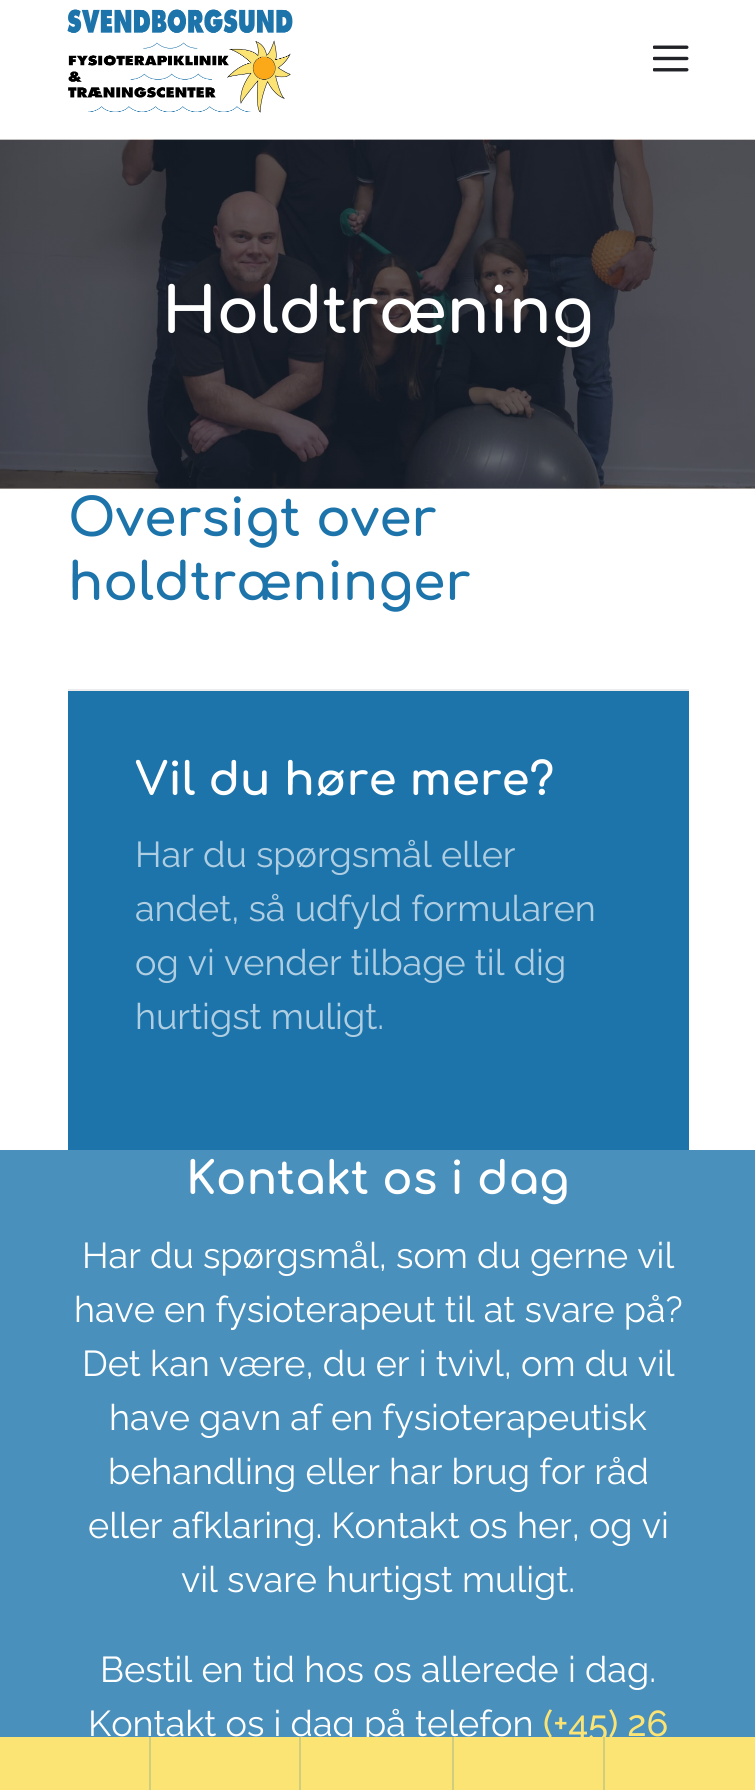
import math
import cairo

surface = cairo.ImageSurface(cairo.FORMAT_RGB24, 755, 1790)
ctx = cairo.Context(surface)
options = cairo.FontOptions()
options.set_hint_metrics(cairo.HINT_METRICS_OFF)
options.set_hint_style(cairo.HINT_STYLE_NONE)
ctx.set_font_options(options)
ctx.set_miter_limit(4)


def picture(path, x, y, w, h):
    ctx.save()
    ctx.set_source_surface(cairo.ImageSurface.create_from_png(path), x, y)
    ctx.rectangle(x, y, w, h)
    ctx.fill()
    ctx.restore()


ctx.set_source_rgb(1, 1, 1)
ctx.paint()
picture("img1.png", 67, 9, 226, 104)
picture("img2.png", 653, 45, 36, 27)
picture("img3.png", 0, 139, 755, 350)
ctx.select_font_face("Comfortaa", cairo.FONT_SLANT_NORMAL, cairo.FONT_WEIGHT_BOLD)
ctx.set_font_size(63)
ctx.set_source_rgb(1, 1, 1)
ctx.move_to(162, 333)
ctx.show_text("Holdtræning")
ctx.set_font_size(51.75)
ctx.set_source_rgb(0.114, 0.455, 0.671)
ctx.move_to(68, 536)
ctx.show_text("Oversigt over")
ctx.move_to(68, 600)
ctx.show_text("holdtræninger")
ctx.set_source_rgb(0.922, 0.922, 0.922)
ctx.rectangle(68, 689, 621, 2)
ctx.fill()
ctx.set_source_rgb(0.114, 0.455, 0.671)
ctx.rectangle(68, 691, 621, 459)
ctx.fill()
ctx.set_font_size(45)
ctx.set_source_rgb(1, 1, 1)
ctx.move_to(135, 795)
ctx.show_text("Vil du høre mere?")
ctx.select_font_face("Raleway")
ctx.set_font_size(36)
ctx.set_source_rgb(0.69, 0.808, 0.886)
ctx.move_to(135, 867)
ctx.show_text("Har du spørgsmål eller")
ctx.move_to(135, 921)
ctx.show_text("andet, så udfyld formularen")
ctx.move_to(135, 975)
ctx.show_text("og vi vender tilbage til dig")
ctx.move_to(135, 1029)
ctx.show_text("hurtigst muligt.")
ctx.set_source_rgb(0.29, 0.565, 0.737)
ctx.rectangle(0, 1150, 755, 587)
ctx.fill()
ctx.select_font_face("Comfortaa", cairo.FONT_SLANT_NORMAL, cairo.FONT_WEIGHT_BOLD)
ctx.set_font_size(45)
ctx.set_source_rgb(1, 1, 1)
ctx.move_to(186, 1194)
ctx.show_text("Kontakt os i dag")
ctx.select_font_face("Raleway")
ctx.set_font_size(36)
ctx.move_to(82, 1268)
ctx.show_text("Har du spørgsmål, som du gerne vil")
ctx.move_to(74, 1322)
ctx.show_text("have en fysioterapeut til at svare på?")
ctx.move_to(82, 1376)
ctx.show_text("Det kan være, du er i tvivl, om du vil")
ctx.move_to(109, 1430)
ctx.show_text("have gavn af en fysioterapeutisk")
ctx.move_to(108, 1484)
ctx.show_text("behandling eller har brug for råd")
ctx.move_to(88, 1538)
ctx.show_text("eller afklaring. Kontakt os her, og vi")
ctx.move_to(181, 1592)
ctx.show_text("vil svare hurtigst muligt.")
ctx.move_to(100, 1682)
ctx.show_text("Bestil en tid hos os allerede i dag.")
ctx.move_to(88, 1736)
ctx.show_text("Kontakt os i dag på telefon")
ctx.select_font_face("Raleway Medium")
ctx.set_source_rgb(0.984, 0.894, 0.451)
ctx.move_to(543, 1736)
ctx.show_text("(+45) 26")
ctx.rectangle(0, 1737, 755, 53)
ctx.fill()
ctx.set_source_rgb(0.812, 0.808, 0.494)
ctx.rectangle(149, 1737, 2, 53)
ctx.fill()
ctx.rectangle(299, 1737, 2, 53)
ctx.fill()
ctx.rectangle(452, 1737, 2, 53)
ctx.fill()
ctx.rectangle(603, 1737, 2, 53)
ctx.fill()
surface.write_to_png("page.png")
